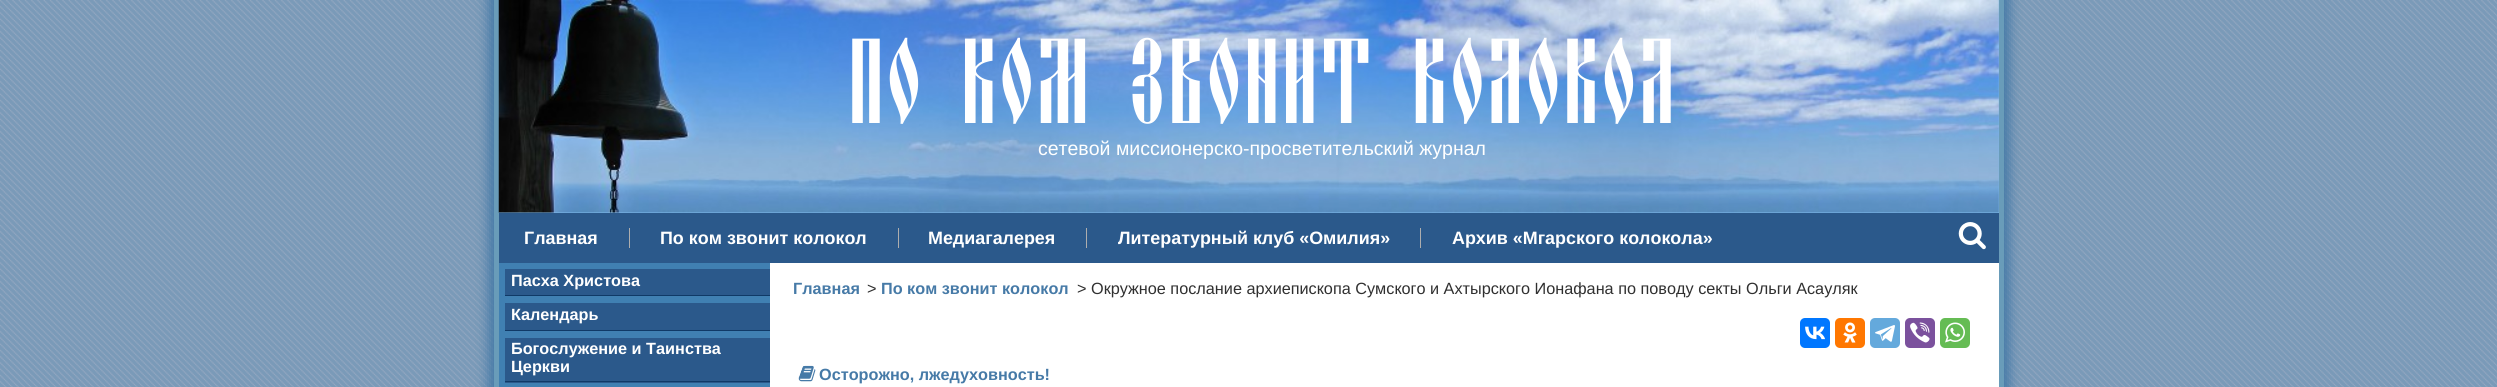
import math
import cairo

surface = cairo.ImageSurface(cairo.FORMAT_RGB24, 2497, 387)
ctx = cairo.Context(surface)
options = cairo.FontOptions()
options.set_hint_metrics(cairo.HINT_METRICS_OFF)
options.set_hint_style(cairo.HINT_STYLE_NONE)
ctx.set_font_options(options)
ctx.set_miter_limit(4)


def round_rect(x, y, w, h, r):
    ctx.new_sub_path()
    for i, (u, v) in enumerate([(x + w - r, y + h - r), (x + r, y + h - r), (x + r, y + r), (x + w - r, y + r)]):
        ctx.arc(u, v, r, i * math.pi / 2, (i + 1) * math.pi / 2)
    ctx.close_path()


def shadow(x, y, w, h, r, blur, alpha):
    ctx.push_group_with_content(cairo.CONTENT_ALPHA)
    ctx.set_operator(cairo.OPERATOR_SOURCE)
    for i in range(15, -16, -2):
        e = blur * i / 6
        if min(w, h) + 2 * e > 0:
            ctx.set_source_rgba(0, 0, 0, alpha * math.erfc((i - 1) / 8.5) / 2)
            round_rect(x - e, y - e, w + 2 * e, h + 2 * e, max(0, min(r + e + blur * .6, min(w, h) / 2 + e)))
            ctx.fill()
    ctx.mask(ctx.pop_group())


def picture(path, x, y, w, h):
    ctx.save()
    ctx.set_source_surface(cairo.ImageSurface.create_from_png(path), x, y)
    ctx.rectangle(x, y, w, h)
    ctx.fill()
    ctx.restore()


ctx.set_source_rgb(1, 1, 1)
ctx.paint()
picture("img1.png", 0, 0, 2497, 387)
ctx.set_source_rgb(0.275, 0.478, 0.655)
shadow(488, -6, 1522, 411, 0, 6, 1)
ctx.set_source_rgb(1, 1, 1)
ctx.rectangle(770, 263, 1229, 124)
ctx.fill()
ctx.set_source_rgb(0.412, 0.612, 0.725)
ctx.rectangle(1999, 0, 5, 387)
ctx.fill()
ctx.rectangle(494, 0, 5, 387)
ctx.fill()
ctx.set_source_rgb(0.502, 0.733, 0.925)
ctx.rectangle(499, 0, 1500, 213)
ctx.fill()
picture("img2.png", 498, 0, 1501, 213)
ctx.select_font_face("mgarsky")
ctx.set_font_size(105.5)
ctx.set_source_rgb(1, 1, 1)
ctx.move_to(847, 123)
ctx.show_text("По ком звонит колокол")
ctx.select_font_face("Liberation Sans")
ctx.set_font_size(19.5)
ctx.move_to(1038, 155)
ctx.show_text("сетевой миссионерско-просветительский журнал")
ctx.set_source_rgb(0.169, 0.349, 0.545)
ctx.rectangle(499, 213, 1500, 50)
ctx.fill()
ctx.select_font_face("Liberation Sans", cairo.FONT_SLANT_NORMAL, cairo.FONT_WEIGHT_BOLD)
ctx.set_font_size(17.9)
ctx.set_source_rgb(1, 1, 1)
ctx.move_to(524, 244)
ctx.show_text("Главная")
ctx.set_source_rgb(0.682, 0.682, 0.682)
ctx.rectangle(629, 228, 1, 20)
ctx.fill()
ctx.set_source_rgb(1, 1, 1)
ctx.move_to(660, 244)
ctx.show_text("По ком звонит колокол")
ctx.set_source_rgb(0.682, 0.682, 0.682)
ctx.rectangle(898, 228, 1, 20)
ctx.fill()
ctx.set_source_rgb(1, 1, 1)
ctx.move_to(928, 244)
ctx.show_text("Медиагалерея")
ctx.set_source_rgb(0.682, 0.682, 0.682)
ctx.rectangle(1086, 228, 1, 20)
ctx.fill()
ctx.set_source_rgb(1, 1, 1)
ctx.move_to(1118, 244)
ctx.show_text("Литературный клуб «Омилия»")
ctx.set_source_rgb(0.682, 0.682, 0.682)
ctx.rectangle(1420, 228, 1, 20)
ctx.fill()
ctx.set_source_rgb(1, 1, 1)
ctx.move_to(1452, 244)
ctx.show_text("Архив «Мгарского колокола»")
picture("img3.png", 1958, 222, 28, 28)
ctx.set_source_rgb(0.251, 0.502, 0.698)
ctx.rectangle(499, 263, 271, 124)
ctx.fill()
ctx.set_source_rgb(0.169, 0.349, 0.545)
ctx.rectangle(505, 269, 265, 26)
ctx.fill()
ctx.set_source_rgb(0.063, 0.227, 0.404)
ctx.rectangle(505, 295, 265, 1)
ctx.fill()
ctx.set_font_size(16.25)
ctx.set_source_rgb(1, 1, 1)
ctx.move_to(511, 286)
ctx.show_text("Пасха Христова")
ctx.set_source_rgb(0.169, 0.349, 0.545)
ctx.rectangle(505, 303, 265, 27)
ctx.fill()
ctx.set_source_rgb(0.063, 0.227, 0.404)
ctx.rectangle(505, 330, 265, 1)
ctx.fill()
ctx.set_source_rgb(1, 1, 1)
ctx.move_to(511, 320)
ctx.show_text("Календарь")
ctx.set_source_rgb(0.169, 0.349, 0.545)
ctx.rectangle(505, 338, 265, 45)
ctx.fill()
ctx.set_source_rgb(0.063, 0.227, 0.404)
ctx.rectangle(505, 381, 265, 1)
ctx.fill()
ctx.set_source_rgb(1, 1, 1)
ctx.move_to(511, 354)
ctx.show_text("Богослужение и Таинства")
ctx.move_to(511, 372)
ctx.show_text("Церкви")
ctx.set_source_rgb(0.275, 0.478, 0.655)
ctx.move_to(793, 294)
ctx.show_text("Главная")
ctx.select_font_face("Liberation Sans")
ctx.set_source_rgb(0.188, 0.188, 0.188)
ctx.move_to(867, 294)
ctx.show_text(">")
ctx.select_font_face("Liberation Sans", cairo.FONT_SLANT_NORMAL, cairo.FONT_WEIGHT_BOLD)
ctx.set_source_rgb(0.275, 0.478, 0.655)
ctx.move_to(881, 294)
ctx.show_text("По ком звонит колокол")
ctx.select_font_face("Liberation Sans")
ctx.set_source_rgb(0.188, 0.188, 0.188)
ctx.move_to(1077, 294)
ctx.show_text(">")
ctx.move_to(1091, 294)
ctx.show_text("Окружное послание архиепископа Сумского и Ахтырского Ионафана по поводу секты Ольги Асауляк")
ctx.set_source_rgb(0, 0.467, 1)
round_rect(1800, 318, 30, 30, 5)
ctx.fill()
picture("img4.png", 1805, 326, 20, 14)
ctx.set_source_rgb(1, 0.467, 0)
round_rect(1835, 318, 30, 30, 5)
ctx.fill()
picture("img5.png", 1843, 322, 14, 21)
ctx.set_source_rgb(0.392, 0.663, 0.863)
round_rect(1870, 318, 30, 30, 5)
ctx.fill()
picture("img6.png", 1875, 325, 20, 17)
ctx.set_source_rgb(0.482, 0.318, 0.616)
round_rect(1905, 318, 30, 30, 5)
ctx.fill()
picture("img7.png", 1910, 322, 20, 21)
ctx.set_source_rgb(0.396, 0.737, 0.329)
round_rect(1940, 318, 30, 30, 5)
ctx.fill()
picture("img8.png", 1945, 322, 20, 21)
picture("img9.png", 798, 365, 18, 17)
ctx.select_font_face("Liberation Sans", cairo.FONT_SLANT_NORMAL, cairo.FONT_WEIGHT_BOLD)
ctx.set_source_rgb(0.275, 0.478, 0.655)
ctx.move_to(819, 380)
ctx.show_text("Осторожно, лжедуховность!")
surface.write_to_png("page.png")
